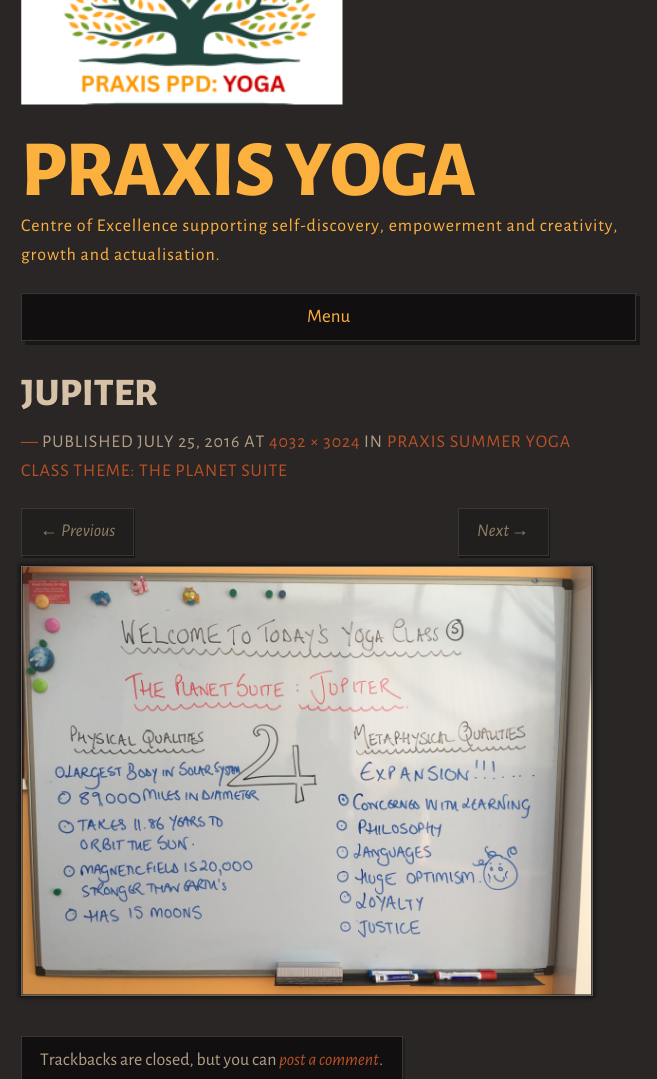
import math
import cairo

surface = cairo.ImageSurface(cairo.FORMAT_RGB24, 657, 1079)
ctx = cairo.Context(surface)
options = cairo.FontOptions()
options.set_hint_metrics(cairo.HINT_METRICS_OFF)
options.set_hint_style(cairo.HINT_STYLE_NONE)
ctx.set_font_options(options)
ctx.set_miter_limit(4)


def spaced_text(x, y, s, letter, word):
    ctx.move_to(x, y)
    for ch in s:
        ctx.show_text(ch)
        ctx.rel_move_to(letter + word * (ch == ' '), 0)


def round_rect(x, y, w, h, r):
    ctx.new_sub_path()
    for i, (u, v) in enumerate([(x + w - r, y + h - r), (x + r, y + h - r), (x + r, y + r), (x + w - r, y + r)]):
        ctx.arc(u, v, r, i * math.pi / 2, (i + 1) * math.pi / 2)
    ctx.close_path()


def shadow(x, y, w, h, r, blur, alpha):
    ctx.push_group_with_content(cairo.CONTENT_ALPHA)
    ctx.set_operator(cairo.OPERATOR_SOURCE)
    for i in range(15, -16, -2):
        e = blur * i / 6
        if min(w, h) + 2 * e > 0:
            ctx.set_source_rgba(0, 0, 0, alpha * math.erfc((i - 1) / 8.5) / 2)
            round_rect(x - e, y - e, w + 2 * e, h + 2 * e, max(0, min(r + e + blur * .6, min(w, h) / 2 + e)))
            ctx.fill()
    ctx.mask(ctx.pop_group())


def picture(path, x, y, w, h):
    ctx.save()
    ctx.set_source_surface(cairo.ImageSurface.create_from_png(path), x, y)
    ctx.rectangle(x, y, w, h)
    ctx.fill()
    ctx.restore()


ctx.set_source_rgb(0.161, 0.149, 0.145)
ctx.paint()
picture("img1.png", 21, 0, 322, 105)
ctx.select_font_face("Alegreya Sans ExtraBold")
ctx.set_font_size(79.5)
ctx.set_source_rgb(0.988, 0.69, 0.243)
spaced_text(21, 195, "PRAXIS YOGA", -0.75, 0)
ctx.select_font_face("Alegreya Sans")
ctx.set_font_size(17.9)
spaced_text(21, 231, "Centre of Excellence supporting self-discovery, empowerment and creativity,", 0.9, 0)
spaced_text(21, 260, "growth and actualisation.", 0.9, 0)
ctx.set_source_rgb(0.098, 0.09, 0.086)
ctx.new_path()
ctx.move_to(25, 341)
ctx.line_to(25, 345)
ctx.line_to(640, 345)
ctx.line_to(640, 296)
ctx.line_to(636, 296)
ctx.line_to(636, 341)
ctx.close_path()
ctx.fill()
ctx.set_source_rgb(0.071, 0.059, 0.063)
ctx.rectangle(21.5, 293.5, 614, 47)
ctx.fill_preserve()
ctx.set_source_rgb(0.224, 0.212, 0.212)
ctx.set_line_width(1)
ctx.stroke()
ctx.set_font_size(19)
ctx.set_source_rgb(0.988, 0.69, 0.243)
ctx.move_to(307, 322)
ctx.show_text("Menu")
ctx.select_font_face("Alegreya Sans ExtraBold")
ctx.set_font_size(39)
ctx.set_source_rgb(0.843, 0.761, 0.659)
ctx.move_to(21, 405)
ctx.show_text("JUPITER")
ctx.select_font_face("Alegreya Sans")
ctx.set_font_size(17.9)
ctx.set_source_rgb(0.725, 0.31, 0.145)
spaced_text(21, 447, "—", 0.9, 0)
ctx.set_source_rgb(0.698, 0.616, 0.522)
spaced_text(42, 447, "PUBLISHED JULY 25, 2016 AT", 0.9, 0)
ctx.set_source_rgb(0.725, 0.31, 0.145)
spaced_text(269, 447, "4032 × 3024", 0.9, 0)
ctx.set_source_rgb(0.698, 0.616, 0.522)
spaced_text(364, 447, "IN", 0.9, 0)
ctx.set_source_rgb(0.725, 0.31, 0.145)
spaced_text(387, 447, "PRAXIS SUMMER YOGA", 0.9, 0)
spaced_text(21, 476, "CLASS THEME: THE PLANET SUITE", 0.9, 0)
ctx.set_source_rgb(0, 0, 0)
shadow(21, 566, 572, 430, 0, 3, 0.9)
ctx.set_source_rgb(0.098, 0.09, 0.086)
ctx.new_path()
ctx.move_to(23, 556)
ctx.line_to(23, 558)
ctx.line_to(135, 558)
ctx.line_to(135, 509)
ctx.line_to(134, 509)
ctx.line_to(134, 556)
ctx.close_path()
ctx.fill()
ctx.set_source_rgb(0.129, 0.118, 0.118)
ctx.rectangle(21.5, 508.5, 112, 47)
ctx.fill_preserve()
ctx.set_source_rgb(0.224, 0.212, 0.212)
ctx.stroke()
ctx.select_font_face("Liberation Sans", cairo.FONT_SLANT_ITALIC)
ctx.set_source_rgb(0.573, 0.494, 0.4)
ctx.move_to(40, 536)
ctx.show_text("←")
ctx.select_font_face("Alegreya Sans", cairo.FONT_SLANT_ITALIC)
ctx.move_to(61, 536)
ctx.show_text("Previous")
ctx.set_source_rgb(0.098, 0.09, 0.086)
ctx.new_path()
ctx.move_to(459, 556)
ctx.line_to(459, 558)
ctx.line_to(550, 558)
ctx.line_to(550, 509)
ctx.line_to(549, 509)
ctx.line_to(549, 556)
ctx.close_path()
ctx.fill()
ctx.set_source_rgb(0.129, 0.118, 0.118)
ctx.rectangle(458.5, 508.5, 90, 47)
ctx.fill_preserve()
ctx.set_source_rgb(0.224, 0.212, 0.212)
ctx.stroke()
ctx.set_source_rgb(0.573, 0.494, 0.4)
ctx.move_to(477, 536)
ctx.show_text("Next")
ctx.select_font_face("Liberation Sans", cairo.FONT_SLANT_ITALIC)
ctx.move_to(511, 536)
ctx.show_text("→")
ctx.set_source_rgb(0.071, 0.059, 0.063)
ctx.rectangle(21.5, 566.5, 571, 429)
ctx.fill_preserve()
ctx.set_source_rgb(0.4, 0.4, 0.4)
ctx.stroke()
picture("img2.png", 22, 567, 570, 428)
ctx.set_source_rgb(0.129, 0.118, 0.118)
ctx.new_path()
ctx.move_to(24, 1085)
ctx.line_to(24, 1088)
ctx.line_to(405, 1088)
ctx.line_to(405, 1039)
ctx.line_to(402, 1039)
ctx.line_to(402, 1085)
ctx.close_path()
ctx.fill()
ctx.set_source_rgb(0.071, 0.059, 0.063)
ctx.rectangle(21.5, 1036.5, 381, 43)
ctx.fill_preserve()
ctx.set_source_rgb(0.224, 0.212, 0.212)
ctx.stroke()
ctx.select_font_face("Alegreya Sans")
ctx.set_source_rgb(0.698, 0.616, 0.522)
ctx.move_to(40, 1065)
ctx.show_text("Trackbacks are closed, but you can")
ctx.select_font_face("Alegreya Sans", cairo.FONT_SLANT_ITALIC)
ctx.set_source_rgb(0.725, 0.31, 0.145)
ctx.move_to(279, 1065)
ctx.show_text("post a comment")
ctx.select_font_face("Alegreya Sans")
ctx.set_source_rgb(0.698, 0.616, 0.522)
ctx.move_to(379, 1065)
ctx.show_text(".")
surface.write_to_png("page.png")
